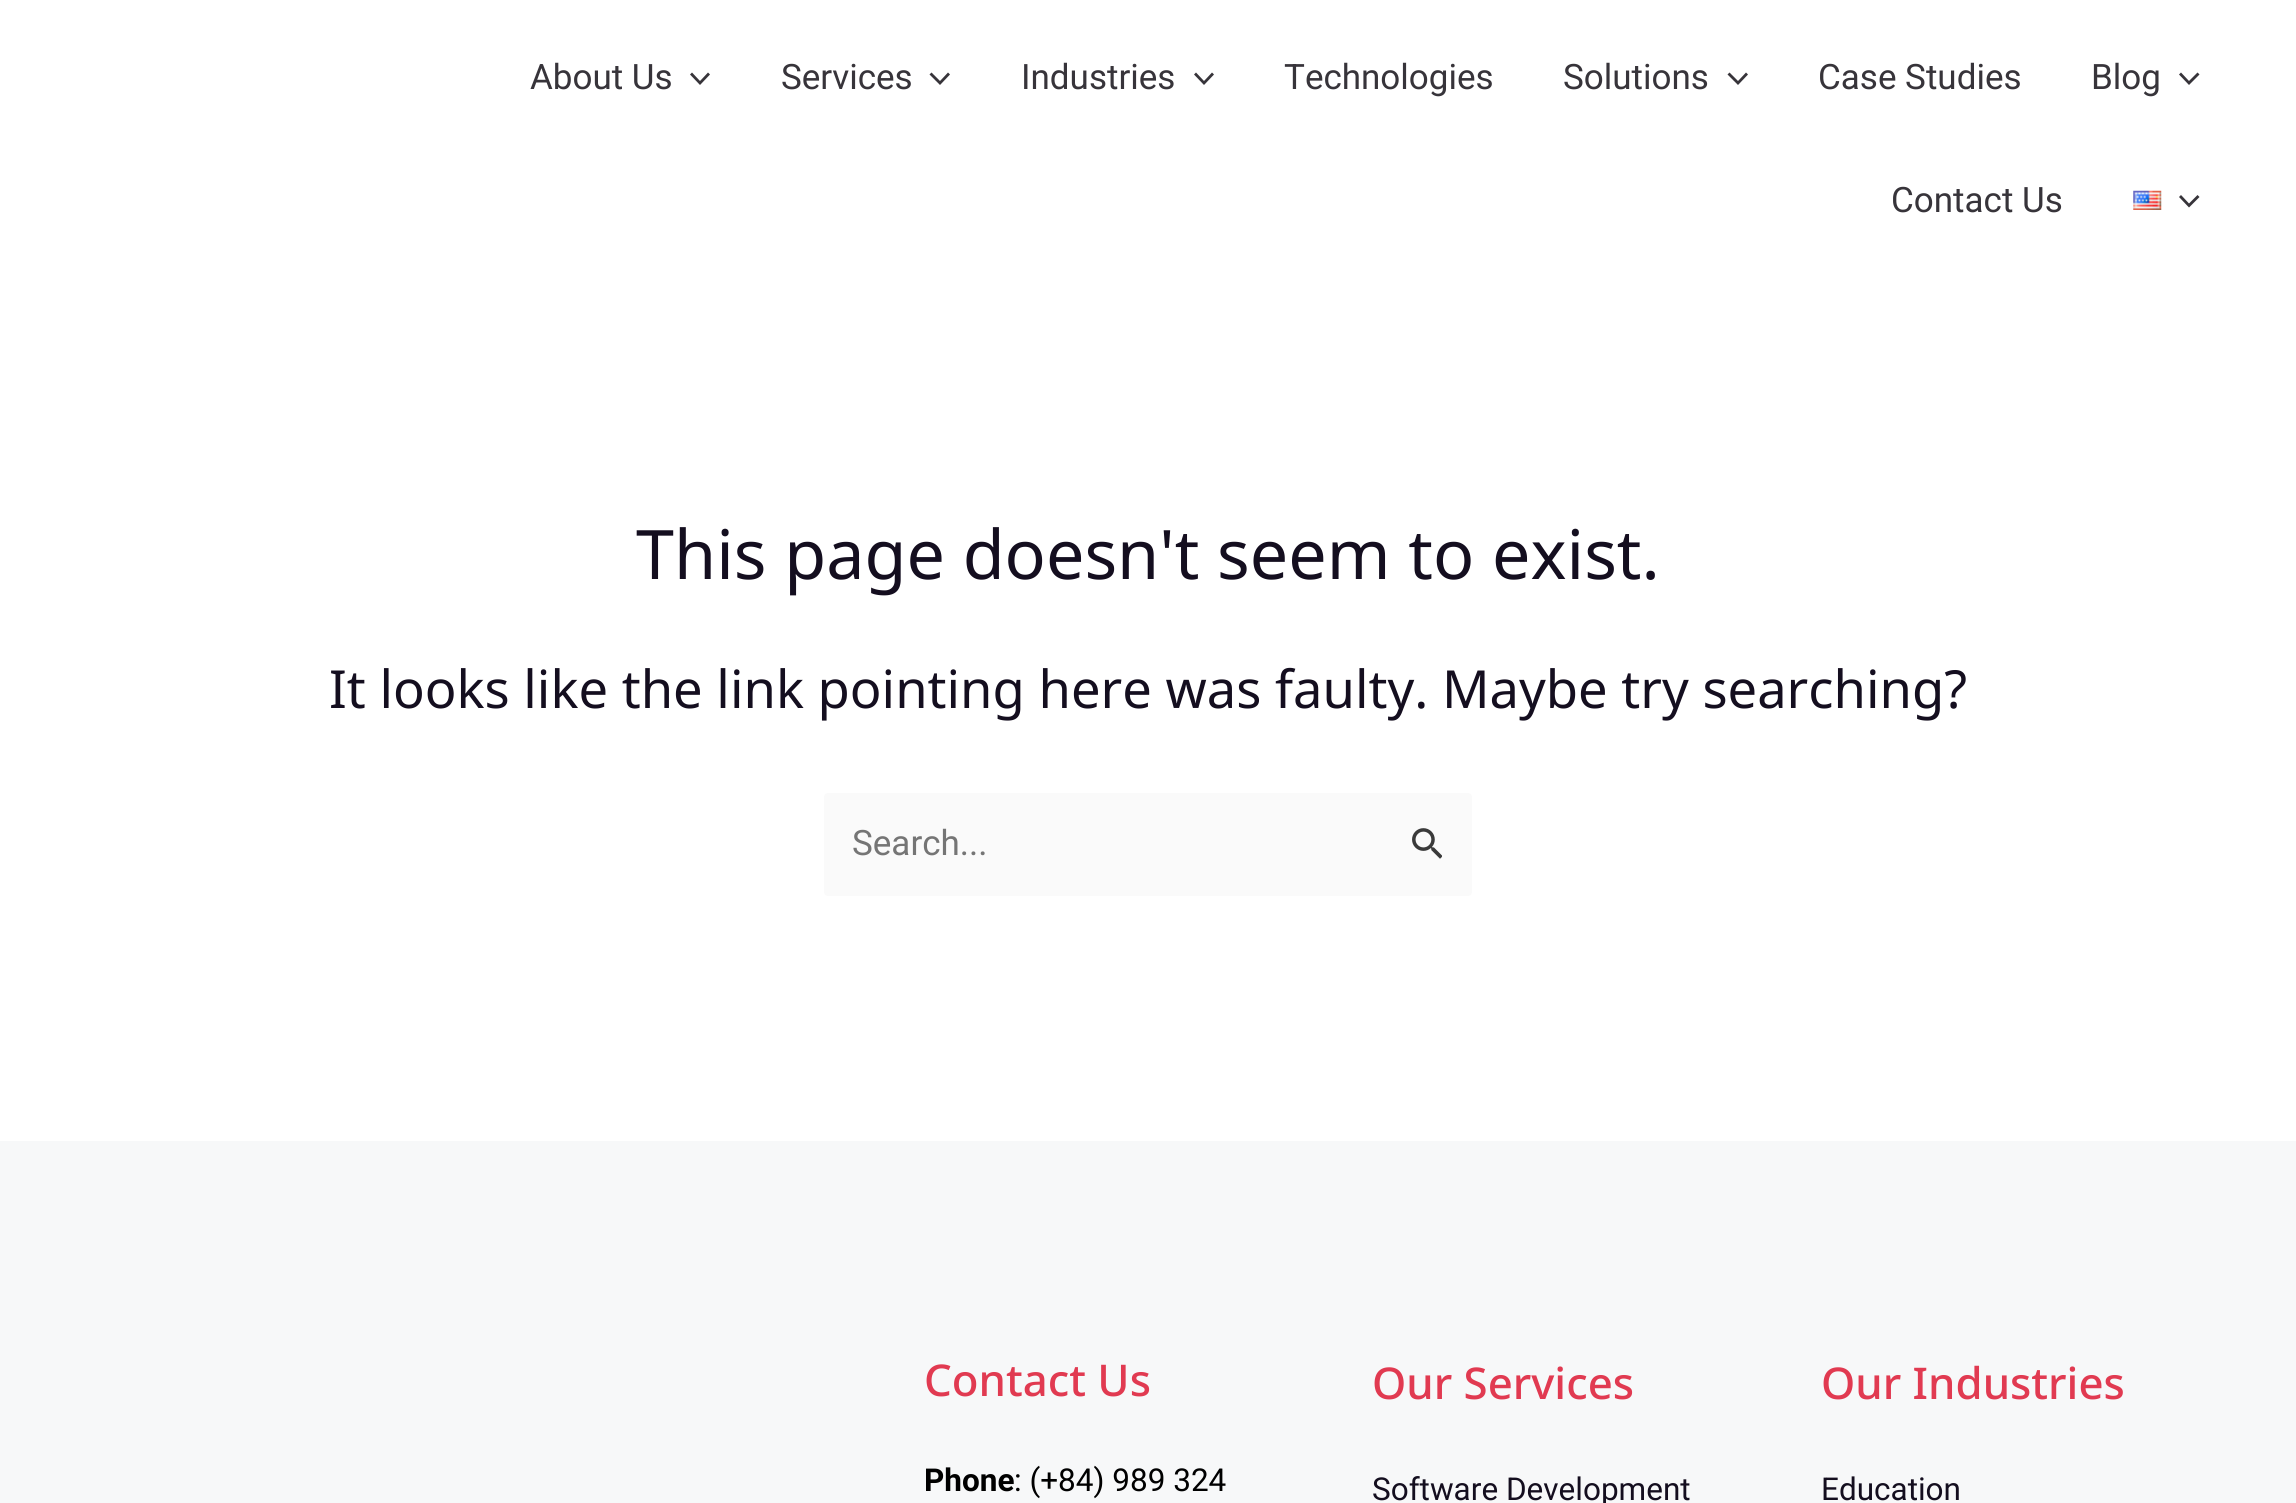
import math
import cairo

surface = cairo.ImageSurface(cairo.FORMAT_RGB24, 2296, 1503)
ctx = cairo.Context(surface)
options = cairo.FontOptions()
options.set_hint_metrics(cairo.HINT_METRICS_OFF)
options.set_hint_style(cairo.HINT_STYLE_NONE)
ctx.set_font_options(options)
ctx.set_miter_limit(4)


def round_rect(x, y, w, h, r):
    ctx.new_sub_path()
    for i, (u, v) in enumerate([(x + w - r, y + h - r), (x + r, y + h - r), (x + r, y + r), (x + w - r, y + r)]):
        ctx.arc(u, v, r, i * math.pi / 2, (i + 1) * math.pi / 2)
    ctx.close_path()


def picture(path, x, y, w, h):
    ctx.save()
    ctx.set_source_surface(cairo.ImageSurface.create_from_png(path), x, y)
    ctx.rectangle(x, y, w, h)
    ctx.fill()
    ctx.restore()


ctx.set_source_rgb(1, 1, 1)
ctx.paint()
ctx.select_font_face("Roboto")
ctx.set_font_size(35)
ctx.set_source_rgb(0.216, 0.204, 0.227)
ctx.move_to(530, 89)
ctx.show_text("About Us")
ctx.new_path()
ctx.move_to(690, 74.5)
ctx.line_to(700, 85)
ctx.line_to(710, 74.5)
ctx.line_to(708, 72.5)
ctx.line_to(700, 81)
ctx.line_to(692, 72.5)
ctx.close_path()
ctx.fill()
ctx.move_to(781, 89)
ctx.show_text("Services")
ctx.new_path()
ctx.move_to(929.5, 74.5)
ctx.line_to(940, 85)
ctx.line_to(950, 74.5)
ctx.line_to(948, 72.5)
ctx.line_to(940, 81)
ctx.line_to(931.5, 72.5)
ctx.close_path()
ctx.fill()
ctx.move_to(1021, 89)
ctx.show_text("Industries")
ctx.new_path()
ctx.move_to(1194, 74.5)
ctx.line_to(1204, 85)
ctx.line_to(1214, 74.5)
ctx.line_to(1212, 72.5)
ctx.line_to(1204, 81)
ctx.line_to(1196, 72.5)
ctx.close_path()
ctx.fill()
ctx.move_to(1284, 89)
ctx.show_text("Technologies")
ctx.move_to(1563, 89)
ctx.show_text("Solutions")
ctx.new_path()
ctx.move_to(1727.5, 74.5)
ctx.line_to(1738, 85)
ctx.line_to(1748, 74.5)
ctx.line_to(1746, 72.5)
ctx.line_to(1738, 81)
ctx.line_to(1729.5, 72.5)
ctx.close_path()
ctx.fill()
ctx.move_to(1818, 89)
ctx.show_text("Case Studies")
ctx.move_to(2091, 89)
ctx.show_text("Blog")
ctx.new_path()
ctx.move_to(2179, 74.5)
ctx.line_to(2189, 85)
ctx.line_to(2199.5, 74.5)
ctx.line_to(2197.5, 72.5)
ctx.line_to(2189, 81)
ctx.line_to(2181, 72.5)
ctx.close_path()
ctx.fill()
ctx.move_to(1891, 212)
ctx.show_text("Contact Us")
picture("img1.png", 2133, 190, 29, 20)
ctx.new_path()
ctx.move_to(2179, 197)
ctx.line_to(2189, 207.5)
ctx.line_to(2199.5, 197)
ctx.line_to(2197.5, 195)
ctx.line_to(2189, 203.5)
ctx.line_to(2181, 195)
ctx.close_path()
ctx.fill()
ctx.select_font_face("Noto Sans")
ctx.set_font_size(68.25)
ctx.set_source_rgb(0.082, 0.055, 0.122)
ctx.move_to(636, 579)
ctx.show_text("This page doesn't seem to exist.")
ctx.set_font_size(52.5)
ctx.move_to(329, 708)
ctx.show_text("It looks like the link pointing here was faulty. Maybe try searching?")
ctx.set_source_rgb(0.98, 0.98, 0.98)
round_rect(824, 793, 648, 103, 4)
ctx.fill()
ctx.select_font_face("Roboto")
ctx.set_font_size(35)
ctx.set_source_rgb(0.459, 0.459, 0.459)
ctx.move_to(852, 855)
ctx.show_text("Search...")
picture("img2.png", 1412, 828, 30, 31)
ctx.set_source_rgb(0.965, 0.969, 0.973)
ctx.rectangle(0, 1141, 2296, 362)
ctx.fill()
ctx.select_font_face("Noto Sans Medium")
ctx.set_font_size(43.75)
ctx.set_source_rgb(0.882, 0.227, 0.318)
ctx.move_to(924, 1396)
ctx.show_text("Contact Us")
ctx.select_font_face("Roboto", cairo.FONT_SLANT_NORMAL, cairo.FONT_WEIGHT_BOLD)
ctx.set_font_size(31.5)
ctx.set_source_rgb(0, 0, 0)
ctx.move_to(924, 1491)
ctx.show_text("Phone")
ctx.select_font_face("Roboto")
ctx.move_to(1014, 1491)
ctx.show_text(": (+84) 989 324")
ctx.select_font_face("Noto Sans Medium")
ctx.set_font_size(43.75)
ctx.set_source_rgb(0.882, 0.227, 0.318)
ctx.move_to(1372, 1399)
ctx.show_text("Our Services")
ctx.select_font_face("Roboto")
ctx.set_font_size(31.5)
ctx.set_source_rgb(0.082, 0.055, 0.122)
ctx.move_to(1372, 1500)
ctx.show_text("Software Development")
ctx.select_font_face("Noto Sans Medium")
ctx.set_font_size(43.75)
ctx.set_source_rgb(0.882, 0.227, 0.318)
ctx.move_to(1821, 1399)
ctx.show_text("Our Industries")
ctx.select_font_face("Roboto")
ctx.set_font_size(31.5)
ctx.set_source_rgb(0.082, 0.055, 0.122)
ctx.move_to(1821, 1500)
ctx.show_text("Education")
surface.write_to_png("page.png")
